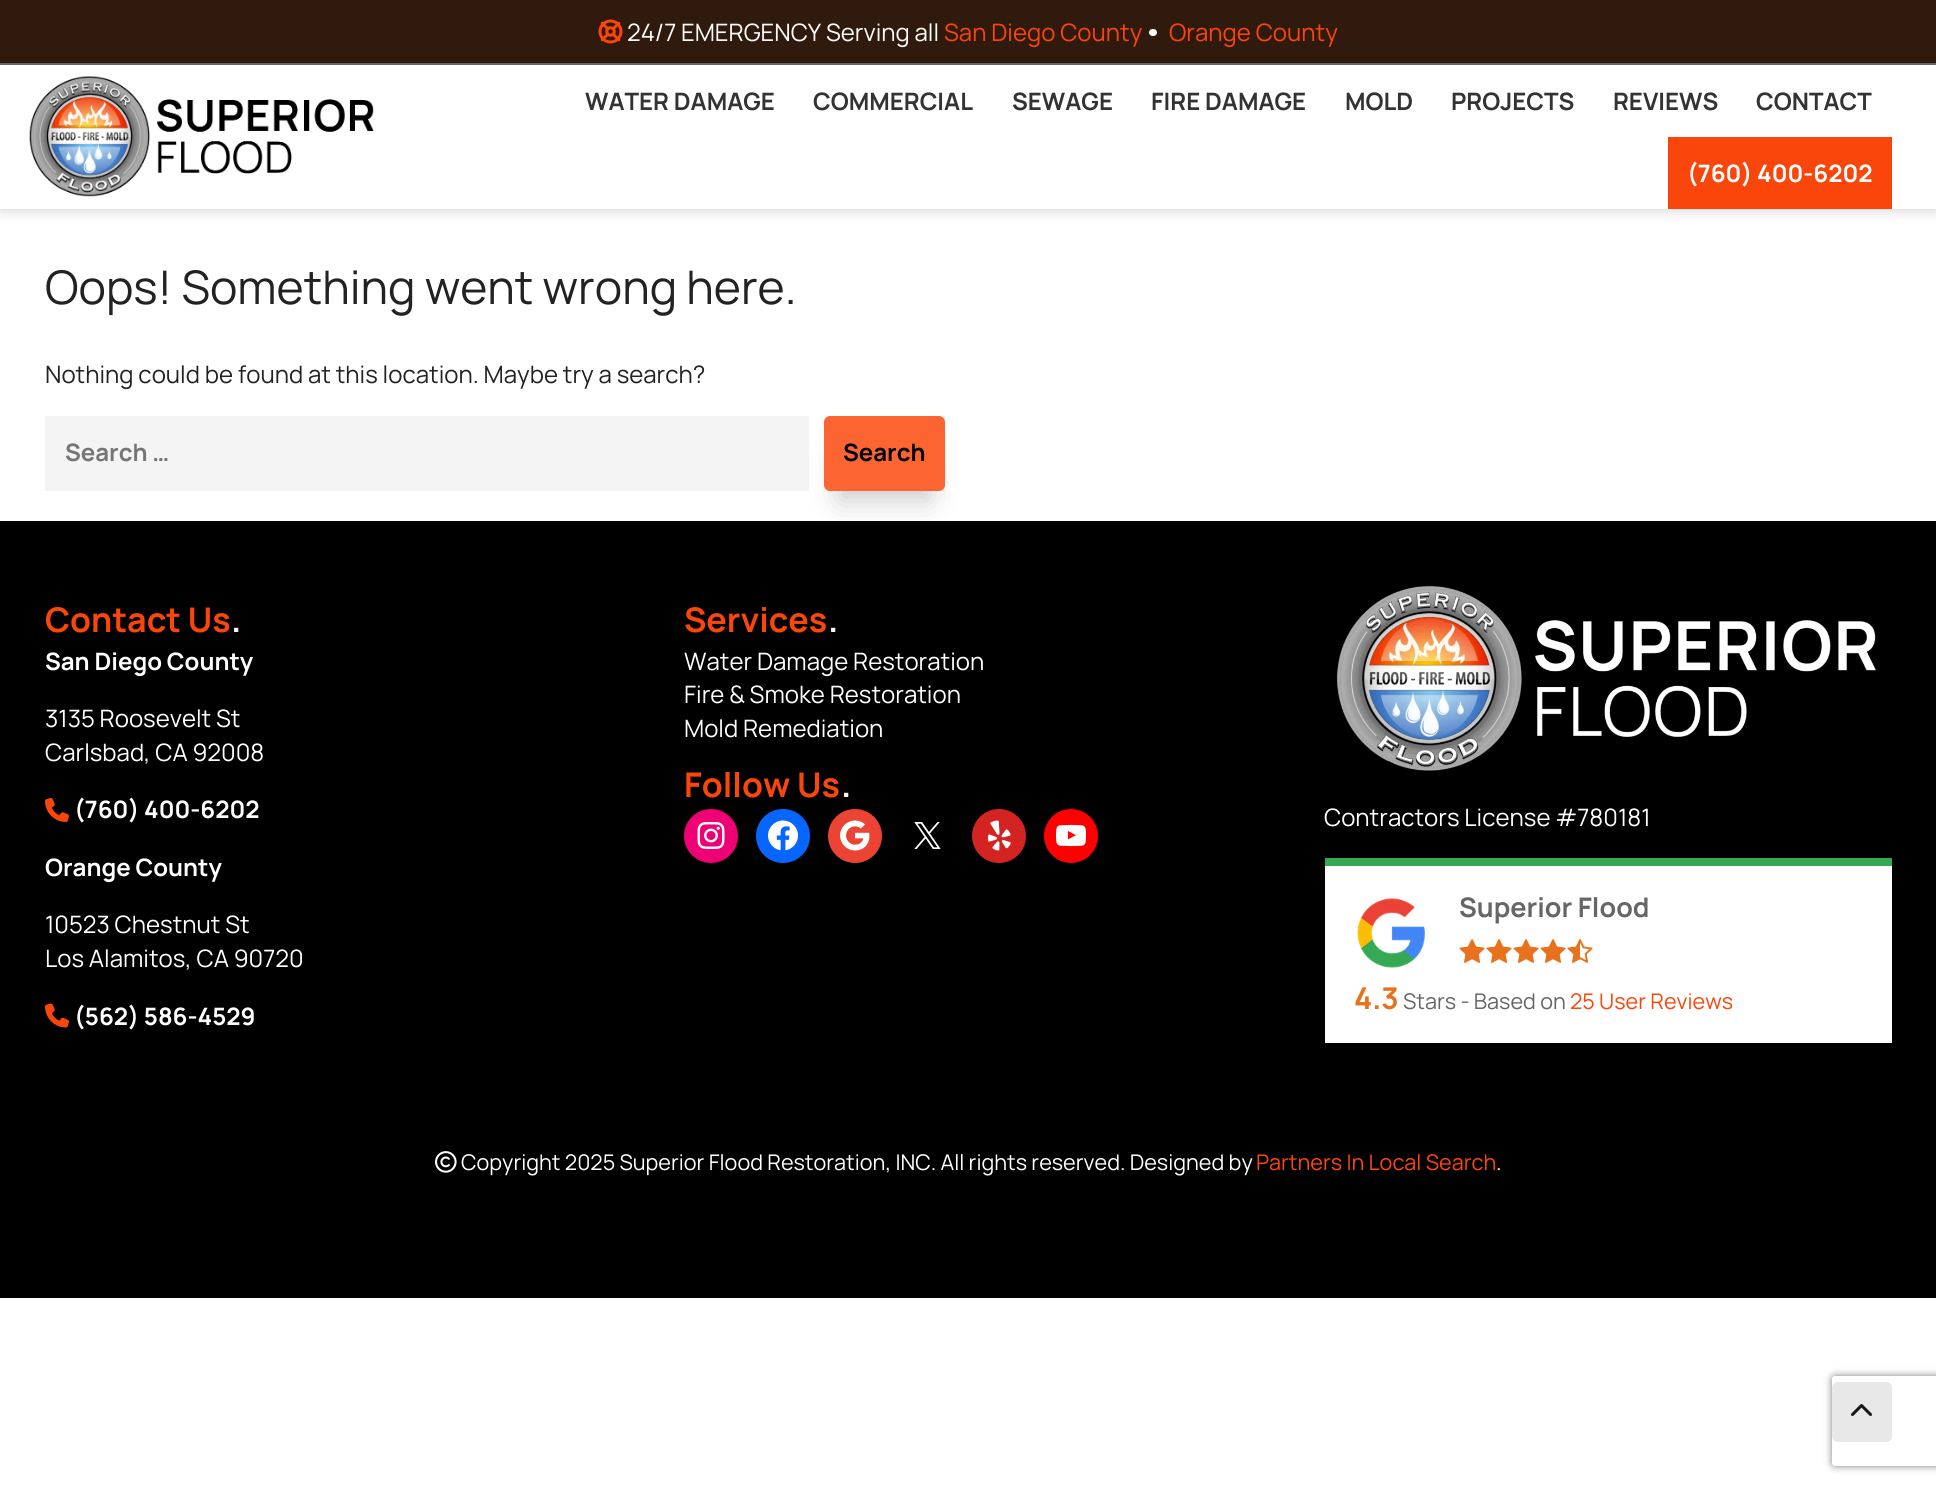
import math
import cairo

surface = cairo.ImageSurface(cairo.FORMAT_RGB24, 1936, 1486)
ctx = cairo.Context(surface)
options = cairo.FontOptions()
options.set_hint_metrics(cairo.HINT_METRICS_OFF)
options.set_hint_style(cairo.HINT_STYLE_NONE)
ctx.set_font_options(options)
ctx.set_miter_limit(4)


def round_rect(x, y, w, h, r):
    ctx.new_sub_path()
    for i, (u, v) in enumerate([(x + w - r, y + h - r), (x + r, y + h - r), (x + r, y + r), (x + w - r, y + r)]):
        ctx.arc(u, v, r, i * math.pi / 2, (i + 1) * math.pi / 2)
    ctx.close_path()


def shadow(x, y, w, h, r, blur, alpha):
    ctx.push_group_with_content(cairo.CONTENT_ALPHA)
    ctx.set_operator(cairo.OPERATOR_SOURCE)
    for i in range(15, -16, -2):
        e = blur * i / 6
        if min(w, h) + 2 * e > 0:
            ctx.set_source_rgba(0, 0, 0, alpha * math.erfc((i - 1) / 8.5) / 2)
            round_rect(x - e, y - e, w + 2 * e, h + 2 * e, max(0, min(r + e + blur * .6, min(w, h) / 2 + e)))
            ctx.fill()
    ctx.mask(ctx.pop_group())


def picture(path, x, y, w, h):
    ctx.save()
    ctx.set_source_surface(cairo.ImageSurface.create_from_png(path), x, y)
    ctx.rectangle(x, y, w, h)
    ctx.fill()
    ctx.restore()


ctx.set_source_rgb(1, 1, 1)
ctx.paint()
ctx.set_source_rgb(0, 0, 0)
shadow(0, 0, 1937, 209, 0, 7.5, 0.2)
ctx.set_source_rgb(1, 1, 1)
ctx.rectangle(0, 65, 1936, 144)
ctx.fill()
ctx.set_source_rgb(0.188, 0.102, 0.051)
ctx.rectangle(0, 0, 1936, 63)
ctx.fill()
ctx.set_source_rgb(0.4, 0.4, 0.4)
ctx.rectangle(0, 63, 1936, 2)
ctx.fill()
picture("img1.png", 598, 19, 25, 25)
ctx.select_font_face("Manrope")
ctx.set_font_size(24)
ctx.set_source_rgb(1, 1, 1)
ctx.move_to(627, 41)
ctx.show_text("24/7 EMERGENCY Serving all")
ctx.set_source_rgb(0.984, 0.275, 0.043)
ctx.move_to(944, 41)
ctx.show_text("San Diego County")
ctx.set_source_rgb(1, 1, 1)
round_rect(1149, 29, 8, 7, 3.5)
ctx.fill()
ctx.set_source_rgb(0.984, 0.275, 0.043)
ctx.move_to(1169, 41)
ctx.show_text("Orange County")
picture("img2.png", 29, 76, 345, 121)
ctx.select_font_face("Manrope", cairo.FONT_SLANT_NORMAL, cairo.FONT_WEIGHT_BOLD)
ctx.set_source_rgb(0.2, 0.2, 0.2)
ctx.move_to(585, 110)
ctx.show_text("WATER DAMAGE")
ctx.move_to(813, 110)
ctx.show_text("COMMERCIAL")
ctx.move_to(1012, 110)
ctx.show_text("SEWAGE")
ctx.move_to(1151, 110)
ctx.show_text("FIRE DAMAGE")
ctx.move_to(1345, 110)
ctx.show_text("MOLD")
ctx.move_to(1451, 110)
ctx.show_text("PROJECTS")
ctx.move_to(1613, 110)
ctx.show_text("REVIEWS")
ctx.move_to(1756, 110)
ctx.show_text("CONTACT")
ctx.set_source_rgb(0.984, 0.275, 0.043)
ctx.rectangle(1668, 137, 224, 72)
ctx.fill()
ctx.set_source_rgb(1, 1, 1)
ctx.move_to(1687, 182)
ctx.show_text("(760) 400-6202")
ctx.select_font_face("Manrope")
ctx.set_font_size(46.3)
ctx.set_source_rgb(0.133, 0.133, 0.133)
ctx.move_to(45, 304)
ctx.show_text("Oops! Something went wrong here.")
ctx.set_font_size(24)
ctx.move_to(45, 383)
ctx.show_text("Nothing could be found at this location. Maybe try a search?")
ctx.set_source_rgb(0.957, 0.957, 0.957)
ctx.rectangle(46, 417, 762, 73)
ctx.fill_preserve()
ctx.stroke()
ctx.select_font_face("Manrope", cairo.FONT_SLANT_NORMAL, cairo.FONT_WEIGHT_BOLD)
ctx.set_source_rgb(0.459, 0.459, 0.459)
ctx.move_to(65, 461)
ctx.show_text("Search …")
ctx.set_source_rgb(0, 0, 0)
shadow(839, 456, 91, 45, 0, 14, 0.2)
ctx.set_source_rgb(0.988, 0.392, 0.192)
round_rect(824, 416, 121, 75, 6)
ctx.fill()
ctx.set_source_rgb(0, 0, 0)
ctx.move_to(843, 461)
ctx.show_text("Search")
ctx.rectangle(0, 521, 1936, 777)
ctx.fill()
ctx.set_font_size(34)
ctx.set_source_rgb(0.984, 0.275, 0.043)
ctx.move_to(45, 632)
ctx.show_text("Contact Us")
ctx.set_source_rgb(0.961, 0.961, 0.961)
ctx.move_to(231, 632)
ctx.show_text(".")
ctx.set_font_size(24)
ctx.set_source_rgb(1, 1, 1)
ctx.move_to(45, 670)
ctx.show_text("San Diego County")
ctx.select_font_face("Manrope")
ctx.move_to(45, 727)
ctx.show_text("3135 Roosevelt St")
ctx.move_to(45, 761)
ctx.show_text("Carlsbad, CA 92008")
picture("img3.png", 45, 798, 24, 24)
ctx.select_font_face("Manrope", cairo.FONT_SLANT_NORMAL, cairo.FONT_WEIGHT_BOLD)
ctx.move_to(74, 818)
ctx.show_text("(760) 400-6202")
ctx.move_to(45, 876)
ctx.show_text("Orange County")
ctx.select_font_face("Manrope")
ctx.move_to(45, 933)
ctx.show_text("10523 Chestnut St")
ctx.move_to(45, 967)
ctx.show_text("Los Alamitos, CA 90720")
picture("img4.png", 45, 1003, 24, 25)
ctx.select_font_face("Manrope", cairo.FONT_SLANT_NORMAL, cairo.FONT_WEIGHT_BOLD)
ctx.move_to(74, 1025)
ctx.show_text("(562) 586-4529")
ctx.set_font_size(34)
ctx.set_source_rgb(0.984, 0.275, 0.043)
ctx.move_to(684, 632)
ctx.show_text("Services")
ctx.set_source_rgb(0.961, 0.961, 0.961)
ctx.move_to(828, 632)
ctx.show_text(".")
ctx.select_font_face("Manrope")
ctx.set_font_size(24)
ctx.set_source_rgb(1, 1, 1)
ctx.move_to(684, 670)
ctx.show_text("Water Damage Restoration")
ctx.move_to(684, 703)
ctx.show_text("Fire & Smoke Restoration")
ctx.move_to(684, 737)
ctx.show_text("Mold Remediation")
ctx.select_font_face("Manrope", cairo.FONT_SLANT_NORMAL, cairo.FONT_WEIGHT_BOLD)
ctx.set_font_size(34)
ctx.set_source_rgb(0.984, 0.275, 0.043)
ctx.move_to(684, 797)
ctx.show_text("Follow Us")
ctx.set_source_rgb(0.961, 0.961, 0.961)
ctx.move_to(841, 797)
ctx.show_text(".")
ctx.set_source_rgb(0.941, 0, 0.459)
ctx.new_path()
ctx.arc(711, 836, 27, 0, 2 * math.pi)
ctx.fill()
picture("img5.png", 697, 822, 28, 27)
ctx.set_source_rgb(0.031, 0.4, 1)
ctx.arc(783, 836, 27, 0, 2 * math.pi)
ctx.fill()
picture("img6.png", 768, 820, 30, 31)
ctx.set_source_rgb(0.918, 0.267, 0.204)
ctx.arc(855, 836, 27, 0, 2 * math.pi)
ctx.fill()
picture("img7.png", 840, 820, 30, 31)
picture("img8.png", 914, 822, 27, 27)
ctx.set_source_rgb(0.827, 0.141, 0.133)
ctx.arc(999, 836, 27, 0, 2 * math.pi)
ctx.fill()
picture("img9.png", 987, 820, 24, 31)
ctx.set_source_rgb(1, 0, 0)
ctx.arc(1071, 836, 27, 0, 2 * math.pi)
ctx.fill()
picture("img10.png", 1056, 824, 30, 23)
picture("img11.png", 1336, 585, 540, 186)
ctx.select_font_face("Manrope")
ctx.set_font_size(24)
ctx.set_source_rgb(1, 1, 1)
ctx.move_to(1324, 826)
ctx.show_text("Contractors License #780181")
ctx.rectangle(1325, 866, 567, 177)
ctx.fill()
ctx.set_source_rgb(0.208, 0.659, 0.325)
ctx.rectangle(1325, 858, 567, 8)
ctx.fill()
picture("img12.png", 1357, 898, 68, 70)
ctx.select_font_face("Manrope", cairo.FONT_SLANT_NORMAL, cairo.FONT_WEIGHT_BOLD)
ctx.set_font_size(27)
ctx.set_source_rgb(0.4, 0.4, 0.4)
ctx.move_to(1459, 917)
ctx.show_text("Superior Flood")
picture("img13.png", 1459, 939, 26, 24)
picture("img13.png", 1486, 939, 26, 24)
picture("img13.png", 1513, 939, 26, 24)
picture("img13.png", 1540, 939, 26, 24)
picture("img14.png", 1567, 939, 26, 24)
ctx.set_font_size(30)
ctx.set_source_rgb(0.906, 0.443, 0.11)
ctx.move_to(1354, 1009)
ctx.show_text("4.3")
ctx.select_font_face("Manrope")
ctx.set_font_size(21.6)
ctx.set_source_rgb(0.4, 0.4, 0.4)
ctx.move_to(1403, 1009)
ctx.show_text("Stars - Based on")
ctx.set_source_rgb(0.984, 0.275, 0.043)
ctx.move_to(1570, 1009)
ctx.show_text("25 User Reviews")
picture("img15.png", 435, 1151, 22, 22)
ctx.set_source_rgb(1, 1, 1)
ctx.move_to(461, 1170)
ctx.show_text("Copyright 2025 Superior Flood Restoration, INC. All rights reserved. Designed by")
ctx.set_source_rgb(0.984, 0.275, 0.043)
ctx.move_to(1256, 1170)
ctx.show_text("Partners In Local Search")
ctx.set_source_rgb(1, 1, 1)
ctx.move_to(1496, 1170)
ctx.show_text(".")
ctx.save()
ctx.set_fill_rule(cairo.FILL_RULE_EVEN_ODD)
ctx.new_path()
ctx.move_to(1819, 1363)
ctx.line_to(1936, 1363)
ctx.line_to(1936, 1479)
ctx.line_to(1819, 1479)
ctx.close_path()
ctx.move_to(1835, 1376)
ctx.line_to(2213, 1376)
ctx.curve_to(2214.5, 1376, 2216, 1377.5, 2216, 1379)
ctx.line_to(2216, 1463)
ctx.curve_to(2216, 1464.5, 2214.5, 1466, 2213, 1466)
ctx.line_to(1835, 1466)
ctx.curve_to(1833.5, 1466, 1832, 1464.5, 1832, 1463)
ctx.line_to(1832, 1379)
ctx.curve_to(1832, 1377.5, 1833.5, 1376, 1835, 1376)
ctx.close_path()
ctx.clip()
ctx.set_source_rgb(0.502, 0.502, 0.502)
shadow(1832, 1376, 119, 90, 3, 4, 1)
ctx.restore()
ctx.set_source_rgb(0.91, 0.91, 0.91)
round_rect(1832, 1382, 60, 60, 6)
ctx.fill()
picture("img16.png", 1851, 1404, 21, 12)
surface.write_to_png("page.png")
